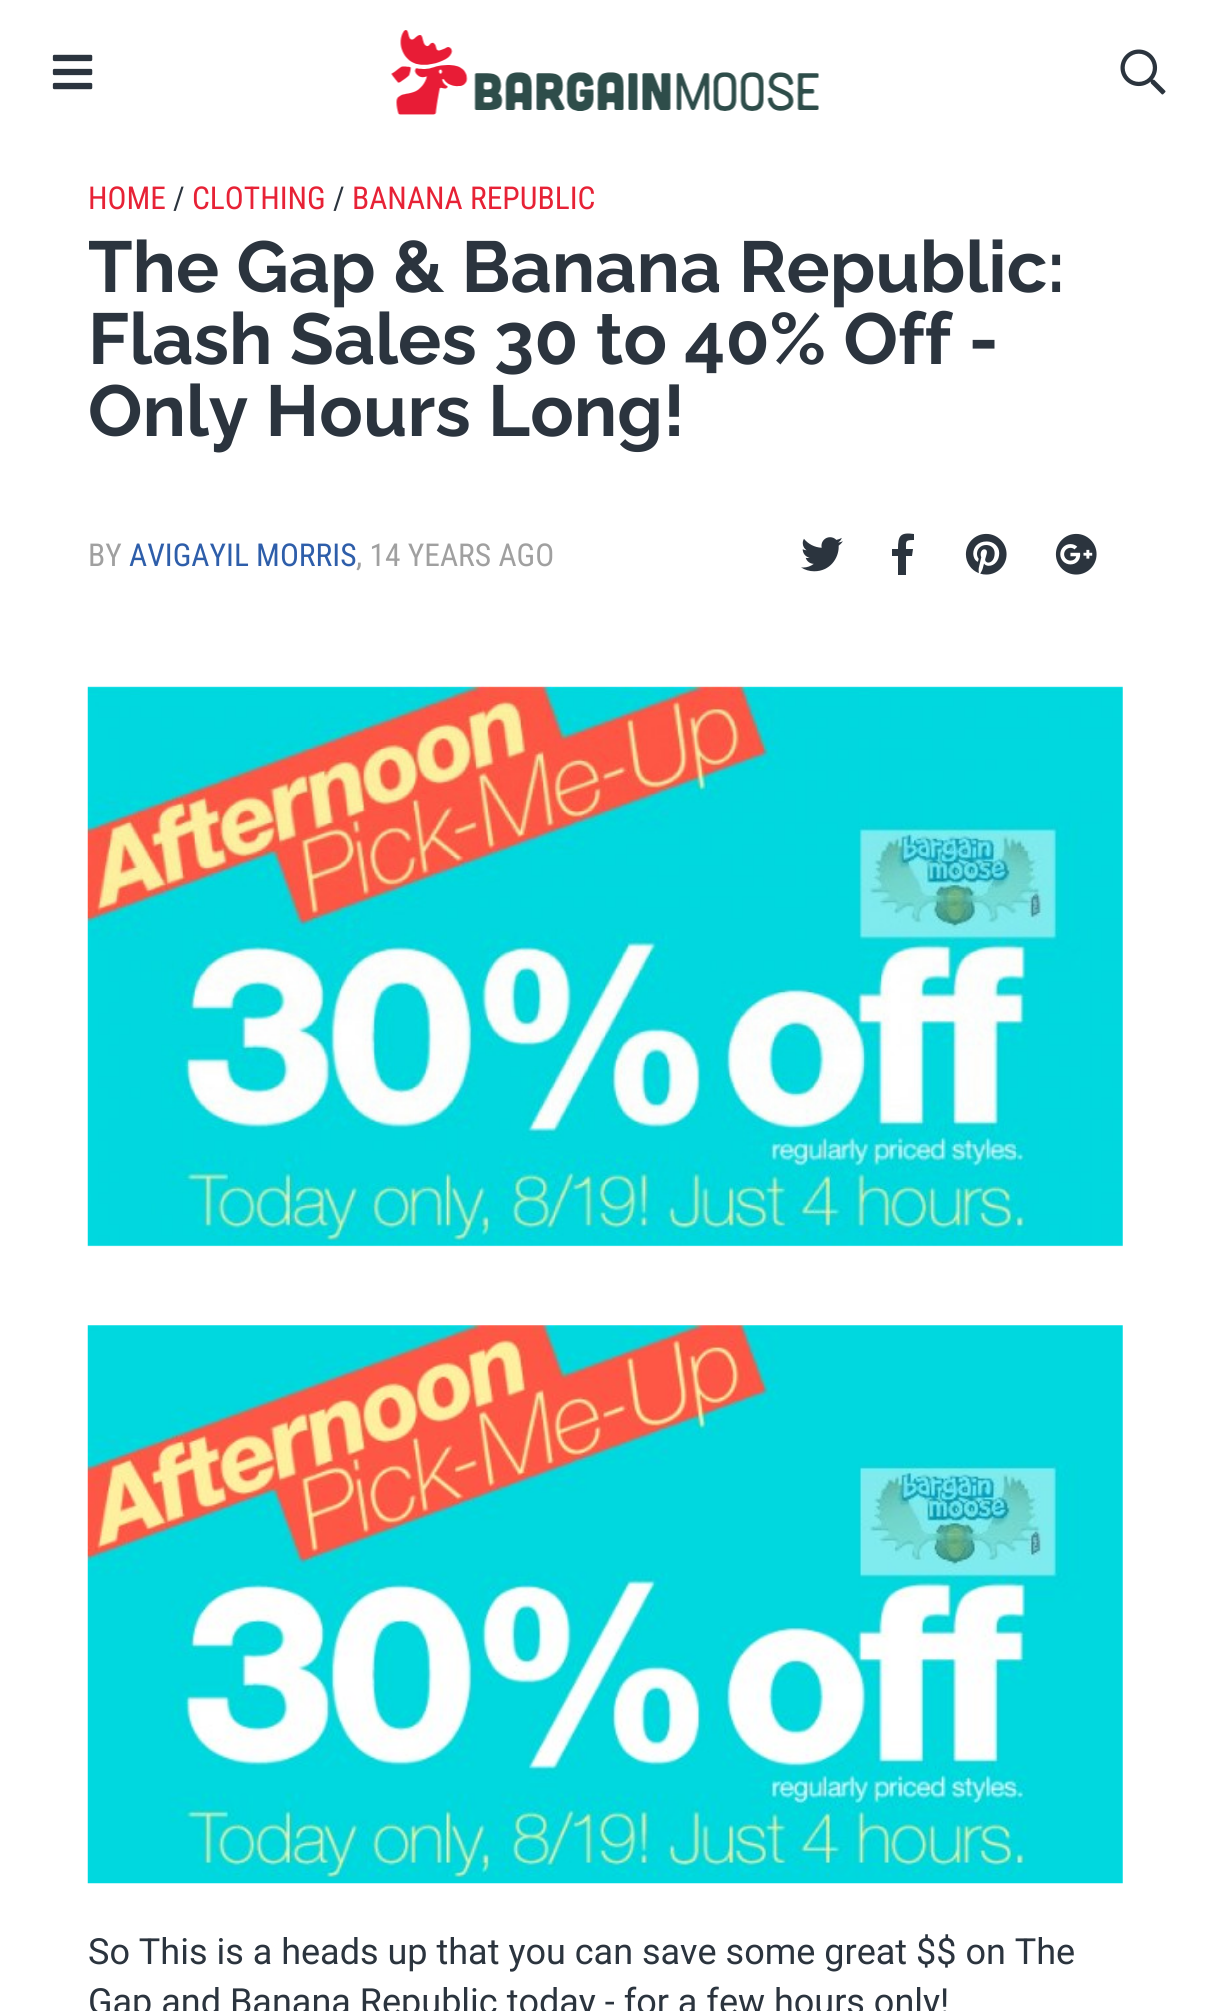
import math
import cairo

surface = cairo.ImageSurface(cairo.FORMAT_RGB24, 1210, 2011)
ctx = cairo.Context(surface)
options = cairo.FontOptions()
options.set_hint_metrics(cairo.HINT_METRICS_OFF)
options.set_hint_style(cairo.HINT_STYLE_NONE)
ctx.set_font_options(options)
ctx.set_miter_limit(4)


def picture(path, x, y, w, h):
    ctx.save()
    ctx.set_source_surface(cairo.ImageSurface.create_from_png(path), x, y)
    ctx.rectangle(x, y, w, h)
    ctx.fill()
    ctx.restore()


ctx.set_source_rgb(1, 1, 1)
ctx.paint()
picture("img1.png", 52, 54, 41, 36)
picture("img2.png", 391, 30, 428, 85)
picture("img3.png", 1120, 49, 46, 46)
ctx.select_font_face("Roboto Condensed")
ctx.set_font_size(31.5)
ctx.set_source_rgb(0.906, 0.133, 0.212)
ctx.move_to(88, 209)
ctx.show_text("HOME")
ctx.set_source_rgb(0.169, 0.204, 0.243)
ctx.move_to(173, 209)
ctx.show_text("/")
ctx.set_source_rgb(0.906, 0.133, 0.212)
ctx.move_to(192, 209)
ctx.show_text("CLOTHING")
ctx.set_source_rgb(0.169, 0.204, 0.243)
ctx.move_to(333, 209)
ctx.show_text("/")
ctx.set_source_rgb(0.906, 0.133, 0.212)
ctx.move_to(352, 209)
ctx.show_text("BANANA REPUBLIC")
ctx.select_font_face("Raleway", cairo.FONT_SLANT_NORMAL, cairo.FONT_WEIGHT_BOLD)
ctx.set_font_size(72)
ctx.set_source_rgb(0.169, 0.204, 0.243)
ctx.move_to(88, 292)
ctx.show_text("The Gap & Banana Republic:")
ctx.move_to(88, 364)
ctx.show_text("Flash Sales 30 to 40% Off -")
ctx.move_to(88, 436)
ctx.show_text("Only Hours Long!")
ctx.select_font_face("Roboto Condensed")
ctx.set_font_size(31.5)
ctx.set_source_rgb(0.627, 0.627, 0.627)
ctx.move_to(88, 566)
ctx.show_text("BY")
ctx.set_source_rgb(0.18, 0.369, 0.667)
ctx.move_to(129, 566)
ctx.show_text("AVIGAYIL MORRIS")
ctx.set_source_rgb(0.627, 0.627, 0.627)
ctx.move_to(356, 566)
ctx.show_text(", 14 YEARS AGO")
picture("img4.png", 801, 537, 42, 35)
ctx.set_source_rgb(0.169, 0.204, 0.243)
ctx.new_path()
ctx.move_to(898, 575)
ctx.line_to(898, 556)
ctx.line_to(892, 556)
ctx.line_to(892, 549)
ctx.line_to(898, 549)
ctx.curve_to(898, 536, 900, 532, 914, 534)
ctx.line_to(914, 540)
ctx.curve_to(905, 540, 906, 541, 906, 549)
ctx.line_to(913, 549)
ctx.line_to(912, 556)
ctx.line_to(906, 556)
ctx.line_to(906, 575)
ctx.fill()
picture("img5.png", 965, 533, 42, 42)
picture("img6.png", 1055, 533, 42, 42)
picture("img7.png", 87, 685, 1036, 562)
picture("img8.png", 87, 1325, 1036, 559)
ctx.select_font_face("Roboto")
ctx.set_font_size(36)
ctx.move_to(88, 1964)
ctx.show_text("So This is a heads up that you can save some great $$ on The")
ctx.move_to(88, 2014)
ctx.show_text("Gap and Banana Republic today - for a few hours only!")
surface.write_to_png("page.png")
